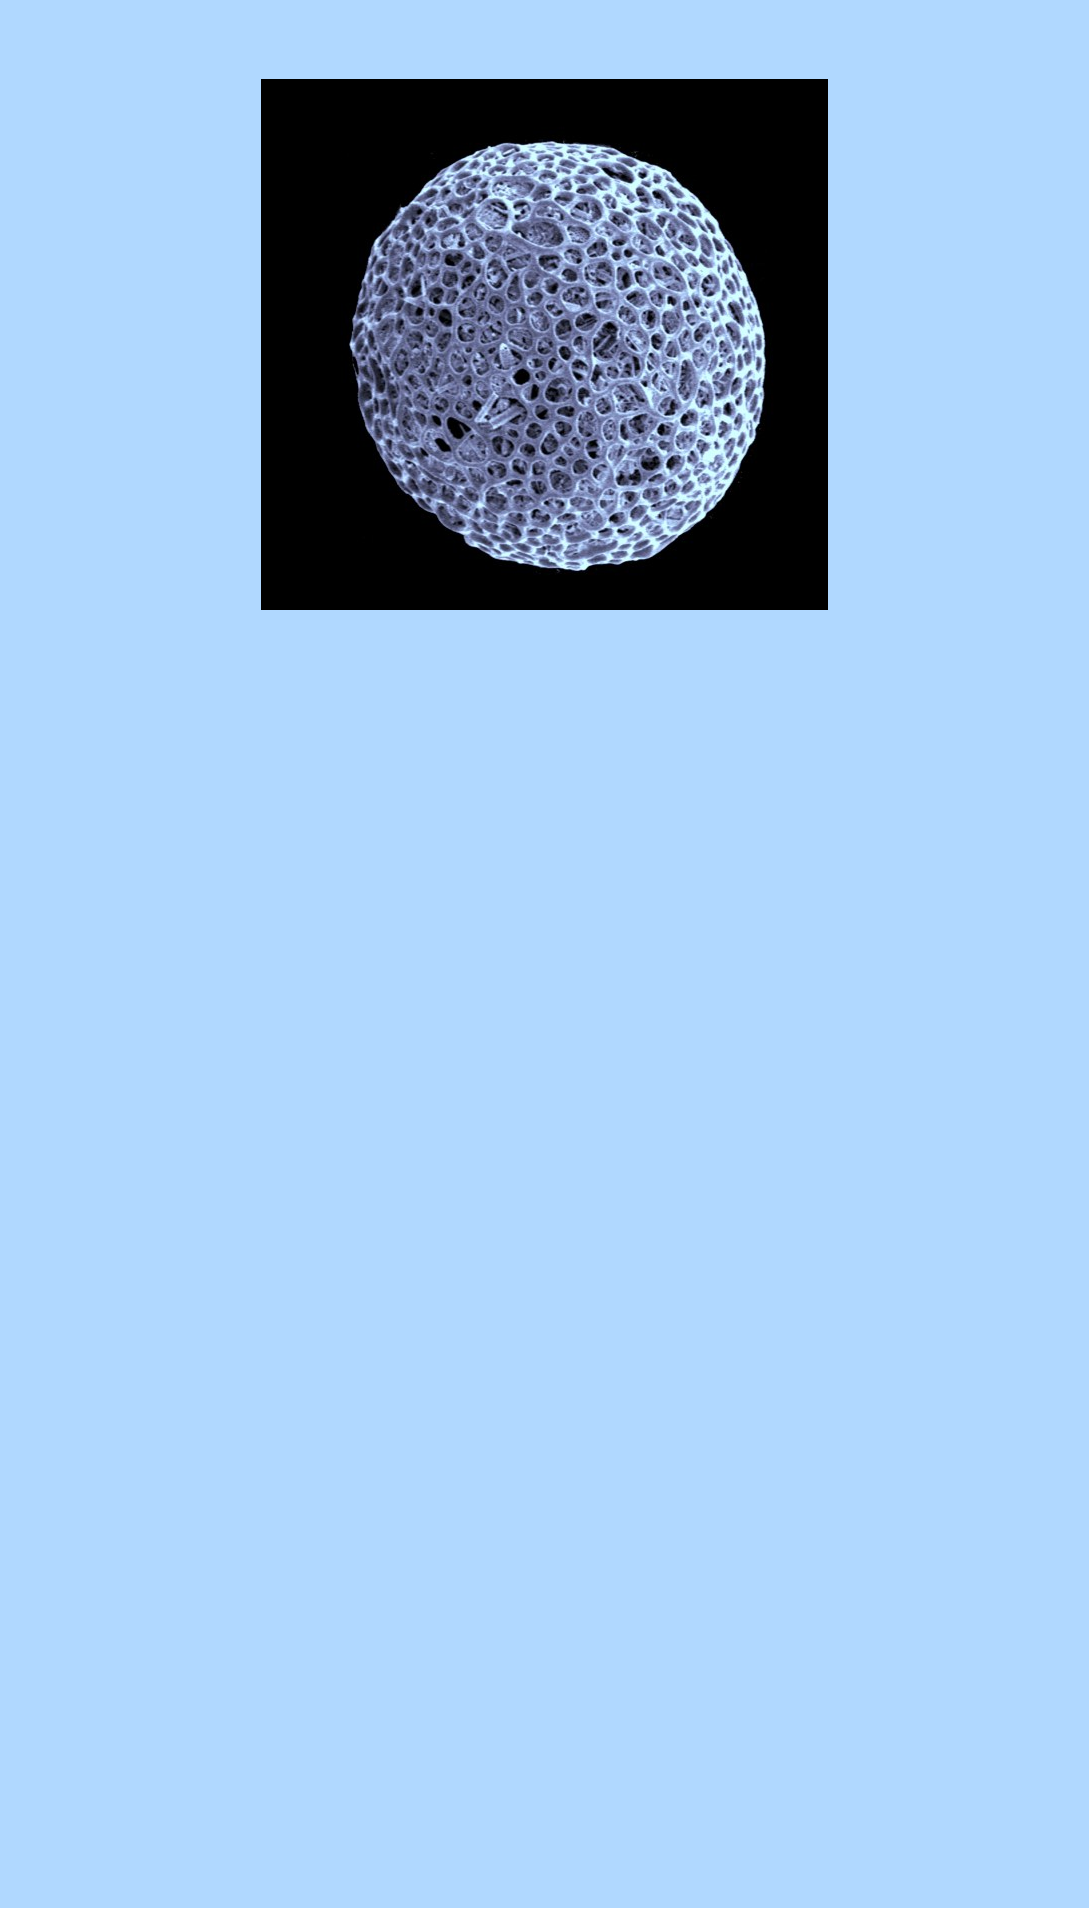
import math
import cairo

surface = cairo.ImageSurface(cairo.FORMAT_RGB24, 1089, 1908)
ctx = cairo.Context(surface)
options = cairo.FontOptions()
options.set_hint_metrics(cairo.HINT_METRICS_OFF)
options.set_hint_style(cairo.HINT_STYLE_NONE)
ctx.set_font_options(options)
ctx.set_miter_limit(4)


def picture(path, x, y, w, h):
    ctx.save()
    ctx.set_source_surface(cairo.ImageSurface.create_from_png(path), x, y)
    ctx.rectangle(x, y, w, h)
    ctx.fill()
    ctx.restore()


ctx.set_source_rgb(0.69, 0.847, 1)
ctx.paint()
picture("img1.png", 261, 79, 567, 531)
surface.write_to_png("page.png")
